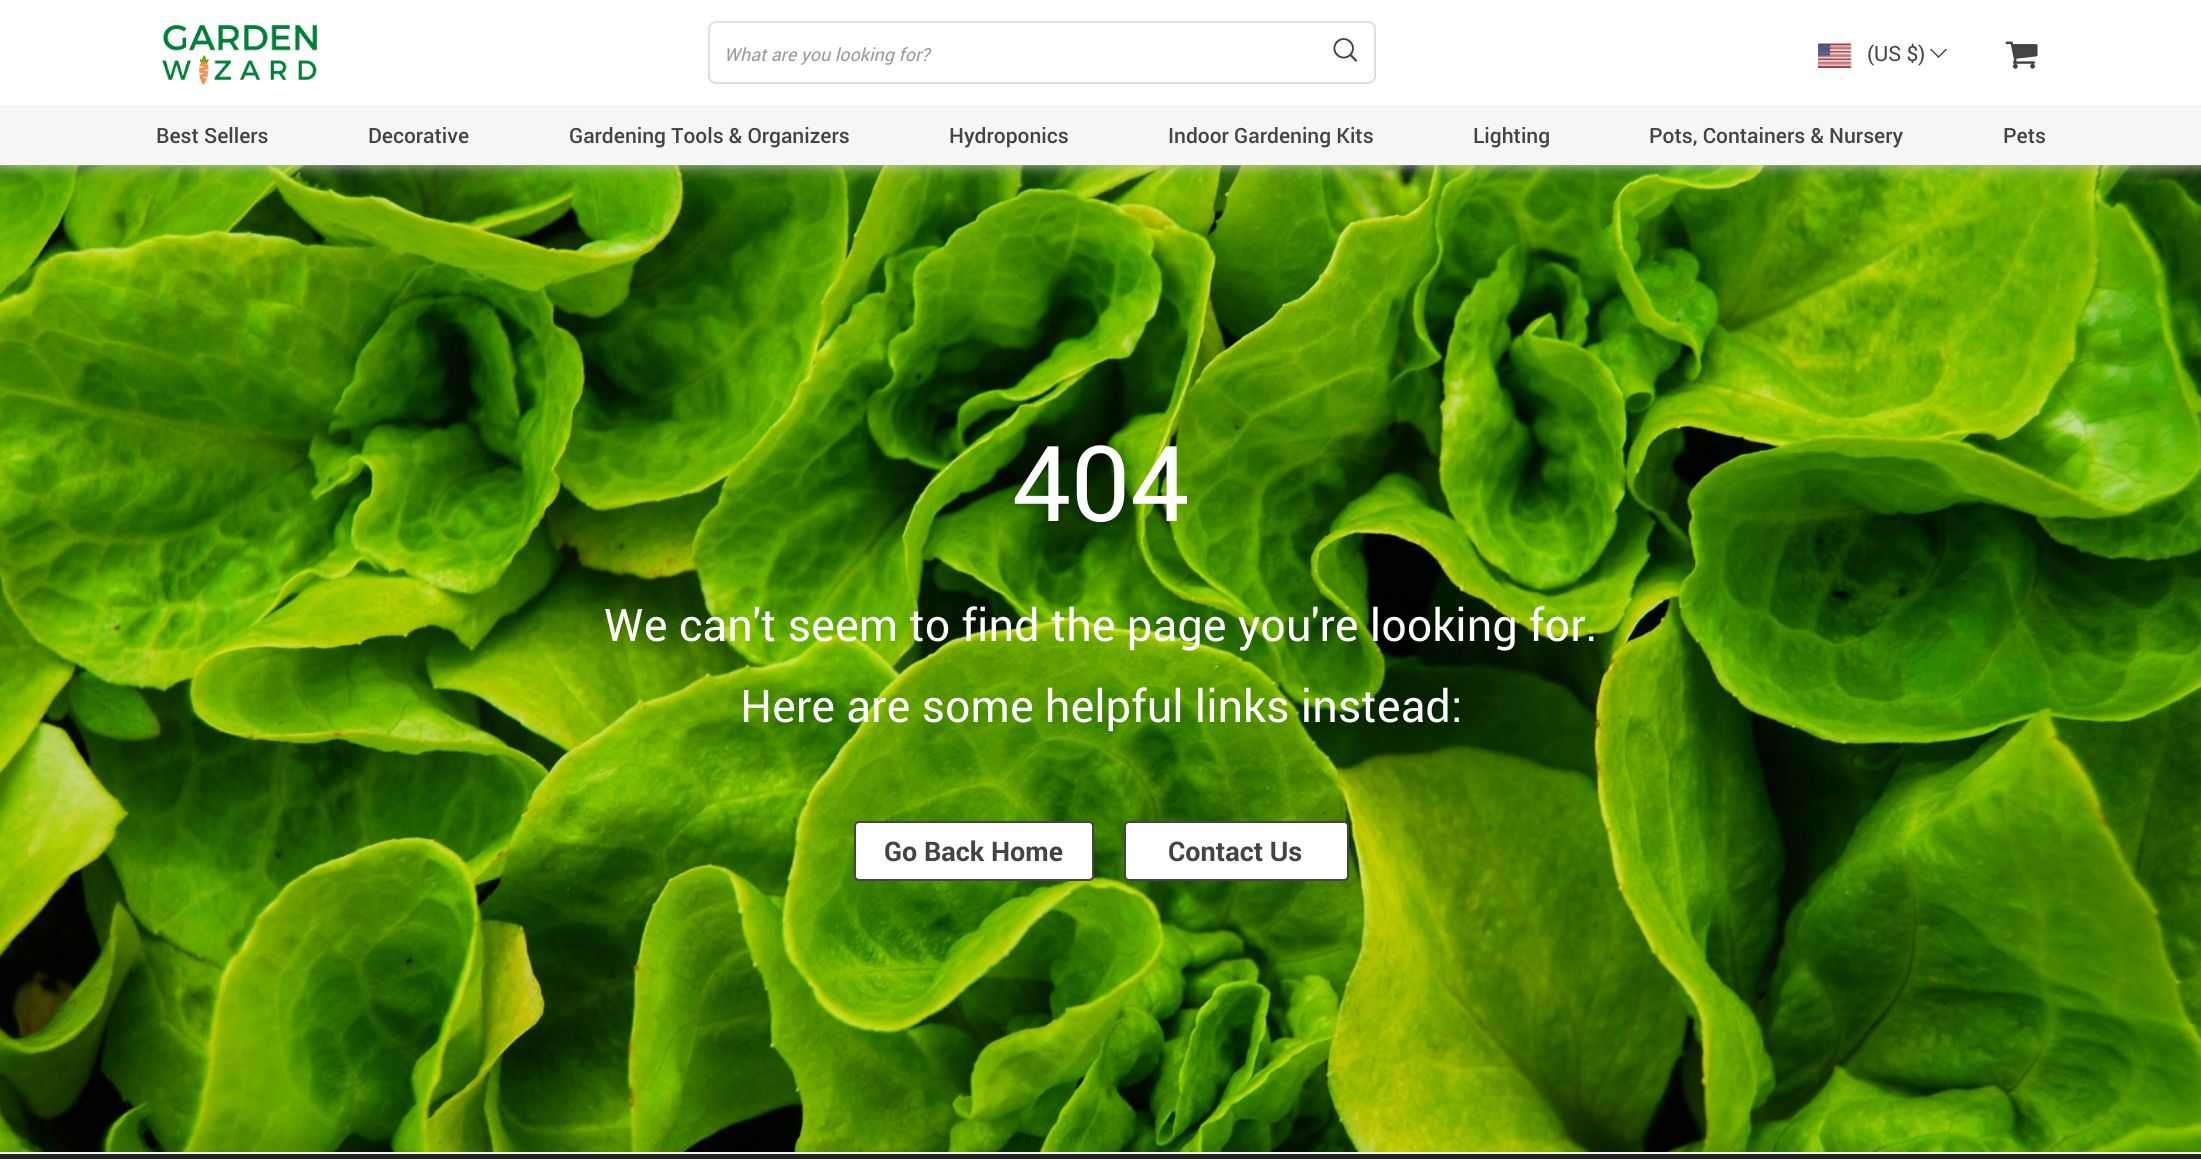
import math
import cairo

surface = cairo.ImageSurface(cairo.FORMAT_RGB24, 2201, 1159)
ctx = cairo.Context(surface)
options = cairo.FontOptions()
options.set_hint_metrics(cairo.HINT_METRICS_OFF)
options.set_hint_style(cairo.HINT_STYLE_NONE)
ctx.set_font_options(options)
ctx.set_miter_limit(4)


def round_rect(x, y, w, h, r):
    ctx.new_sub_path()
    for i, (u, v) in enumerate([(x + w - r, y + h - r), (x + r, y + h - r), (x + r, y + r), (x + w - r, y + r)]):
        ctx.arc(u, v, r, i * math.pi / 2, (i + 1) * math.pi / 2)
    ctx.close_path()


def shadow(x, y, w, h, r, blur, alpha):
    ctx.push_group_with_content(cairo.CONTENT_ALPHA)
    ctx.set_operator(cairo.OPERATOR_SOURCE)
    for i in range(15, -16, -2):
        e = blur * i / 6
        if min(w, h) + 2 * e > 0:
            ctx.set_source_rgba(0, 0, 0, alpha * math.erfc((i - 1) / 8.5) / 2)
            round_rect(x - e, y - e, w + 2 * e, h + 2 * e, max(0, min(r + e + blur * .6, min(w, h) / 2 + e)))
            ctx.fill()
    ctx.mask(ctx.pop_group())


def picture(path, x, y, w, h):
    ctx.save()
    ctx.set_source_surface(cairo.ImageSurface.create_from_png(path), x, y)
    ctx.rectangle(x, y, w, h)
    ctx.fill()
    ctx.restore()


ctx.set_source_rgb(0.133, 0.133, 0.133)
ctx.paint()
picture("img5.png", 0, 165, 2201, 987)
ctx.set_source_rgb(0.8, 0.8, 0.8)
shadow(0, 105, 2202, 60, 0, 7.5, 1)
ctx.set_source_rgb(1, 1, 1)
ctx.rectangle(0, 0, 2201, 105)
ctx.fill()
picture("img1.png", 162, 25, 156, 60)
round_rect(709, 22, 666, 61, 7)
ctx.set_source_rgb(0.875, 0.875, 0.875)
ctx.stroke()
ctx.select_font_face("Roboto", cairo.FONT_SLANT_ITALIC)
ctx.set_font_size(18)
ctx.set_source_rgb(0.6, 0.6, 0.6)
ctx.move_to(724, 61)
ctx.show_text("What are you looking for?")
picture("img2.png", 1333, 38, 24, 24)
picture("img3.png", 1818, 43, 34, 25)
ctx.select_font_face("Roboto")
ctx.set_font_size(21)
ctx.set_source_rgb(0.267, 0.267, 0.267)
ctx.move_to(1867, 61)
ctx.show_text("(US $)")
ctx.new_path()
ctx.move_to(1947, 49.5)
ctx.line_to(1938.5, 58)
ctx.line_to(1937.5, 57)
ctx.line_to(1946, 48.5)
ctx.close_path()
ctx.fill()
ctx.new_path()
ctx.move_to(1939.5, 57)
ctx.line_to(1938.5, 58)
ctx.line_to(1930, 49.5)
ctx.line_to(1931, 48.5)
ctx.close_path()
ctx.fill()
picture("img4.png", 2005, 41, 33, 28)
ctx.set_source_rgb(0.961, 0.961, 0.961)
ctx.rectangle(0, 105, 2201, 60)
ctx.fill()
ctx.select_font_face("Roboto Medium")
ctx.set_source_rgb(0.267, 0.267, 0.267)
ctx.move_to(156, 143)
ctx.show_text("Best Sellers")
ctx.move_to(368, 143)
ctx.show_text("Decorative")
ctx.move_to(569, 143)
ctx.show_text("Gardening Tools & Organizers")
ctx.move_to(949, 143)
ctx.show_text("Hydroponics")
ctx.move_to(1168, 143)
ctx.show_text("Indoor Gardening Kits")
ctx.move_to(1473, 143)
ctx.show_text("Lighting")
ctx.move_to(1649, 143)
ctx.show_text("Pots, Containers & Nursery")
ctx.move_to(2003, 143)
ctx.show_text("Pets")
ctx.select_font_face("Roboto")
ctx.set_font_size(105)
ctx.set_source_rgb(1, 1, 1)
ctx.move_to(1012, 521)
ctx.show_text("404")
ctx.set_font_size(45)
ctx.move_to(604, 641)
ctx.show_text("We can't seem to find the page you're looking for.")
ctx.move_to(740, 722)
ctx.show_text("Here are some helpful links instead:")
round_rect(855, 822, 238, 58, 4)
ctx.fill_preserve()
ctx.set_source_rgb(0.267, 0.267, 0.267)
ctx.stroke()
ctx.select_font_face("Roboto", cairo.FONT_SLANT_NORMAL, cairo.FONT_WEIGHT_BOLD)
ctx.set_font_size(27)
ctx.move_to(884, 861)
ctx.show_text("Go Back Home")
ctx.set_source_rgb(1, 1, 1)
round_rect(1125, 822, 223, 58, 4)
ctx.fill_preserve()
ctx.set_source_rgb(0.267, 0.267, 0.267)
ctx.stroke()
ctx.move_to(1168, 861)
ctx.show_text("Contact Us")
ctx.set_source_rgb(0.933, 0.933, 0.933)
ctx.rectangle(0, 1152, 2201, 2)
ctx.fill()
surface.write_to_png("page.png")
